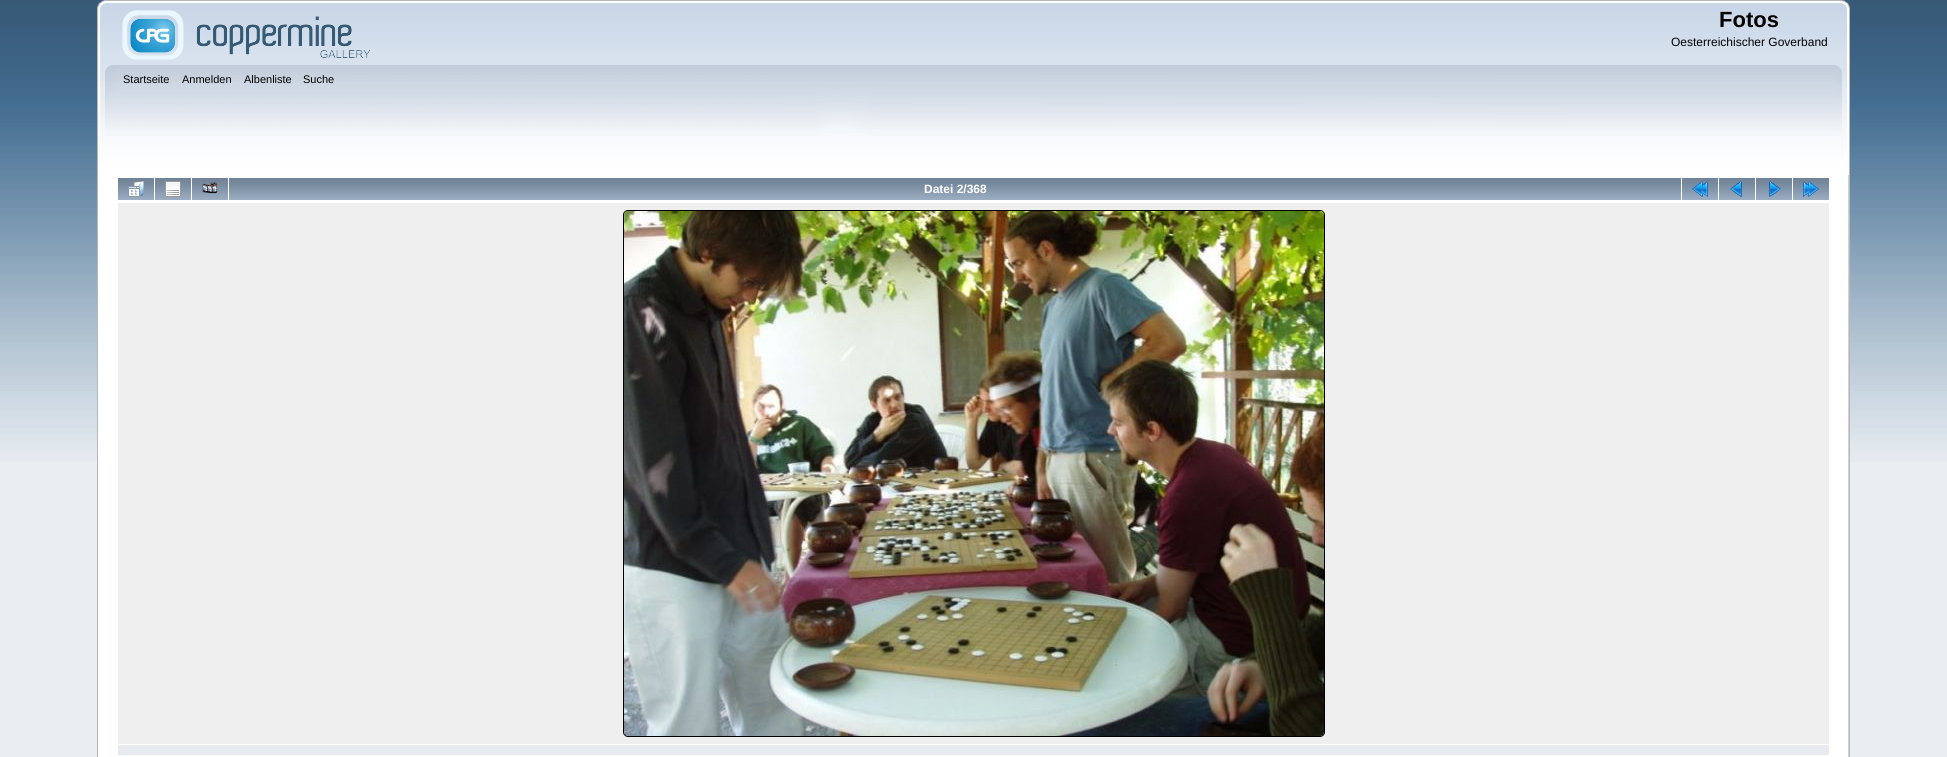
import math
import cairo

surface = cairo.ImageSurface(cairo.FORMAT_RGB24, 1947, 757)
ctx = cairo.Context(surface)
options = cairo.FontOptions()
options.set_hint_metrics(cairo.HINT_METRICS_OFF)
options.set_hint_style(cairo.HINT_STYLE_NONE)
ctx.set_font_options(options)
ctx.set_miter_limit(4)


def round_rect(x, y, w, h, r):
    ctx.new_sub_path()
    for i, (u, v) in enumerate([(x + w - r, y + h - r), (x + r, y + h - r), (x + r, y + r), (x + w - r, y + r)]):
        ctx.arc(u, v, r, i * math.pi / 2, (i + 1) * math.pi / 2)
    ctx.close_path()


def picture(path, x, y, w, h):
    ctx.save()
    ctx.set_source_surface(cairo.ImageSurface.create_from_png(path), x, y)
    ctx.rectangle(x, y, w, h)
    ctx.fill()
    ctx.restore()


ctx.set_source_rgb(0.914, 0.933, 0.949)
ctx.paint()
picture("img1.png", 0, 0, 1947, 462)
picture("img2.png", 97, 0, 1745, 65)
picture("img3.png", 1842, 0, 8, 65)
picture("img4.png", 122, 10, 248, 50)
ctx.select_font_face("Liberation Sans", cairo.FONT_SLANT_NORMAL, cairo.FONT_WEIGHT_BOLD)
ctx.set_font_size(22)
ctx.set_source_rgb(0, 0, 0)
ctx.move_to(1719, 27)
ctx.show_text("Fotos")
ctx.select_font_face("Liberation Sans")
ctx.set_font_size(12)
ctx.move_to(1671, 46)
ctx.show_text("Oesterreichischer Goverband")
picture("img5.png", 97, 65, 1738, 110)
picture("img6.png", 1835, 65, 15, 110)
ctx.set_font_size(11)
ctx.move_to(123, 83)
ctx.show_text("Startseite")
ctx.move_to(182, 83)
ctx.show_text("Anmelden")
ctx.move_to(244, 83)
ctx.show_text("Albenliste")
ctx.move_to(303, 83)
ctx.show_text("Suche")
ctx.set_source_rgb(1, 1, 1)
ctx.rectangle(98, 175, 1750, 582)
ctx.fill()
ctx.set_source_rgb(0.718, 0.718, 0.718)
ctx.rectangle(97, 175, 1, 582)
ctx.fill()
picture("img7.png", 1848, 175, 2, 582)
picture("img8.png", 118, 178, 36, 22)
picture("img9.png", 128, 181, 16, 16)
picture("img8.png", 155, 178, 36, 22)
picture("img10.png", 165, 181, 16, 16)
picture("img8.png", 192, 178, 36, 22)
picture("img11.png", 202, 182, 16, 12)
picture("img12.png", 229, 178, 1452, 22)
ctx.select_font_face("Liberation Sans", cairo.FONT_SLANT_NORMAL, cairo.FONT_WEIGHT_BOLD)
ctx.set_font_size(12)
ctx.set_source_rgb(1, 1, 1)
ctx.move_to(924, 193)
ctx.show_text("Datei 2/368")
picture("img8.png", 1682, 178, 36, 22)
picture("img13.png", 1692, 181, 16, 16)
picture("img8.png", 1719, 178, 36, 22)
picture("img14.png", 1730, 181, 12, 16)
picture("img8.png", 1756, 178, 36, 22)
picture("img15.png", 1769, 181, 12, 16)
picture("img8.png", 1793, 178, 36, 22)
picture("img16.png", 1803, 181, 16, 16)
ctx.set_source_rgb(0.937, 0.937, 0.937)
ctx.rectangle(118, 203, 1711, 541)
ctx.fill()
round_rect(623.5, 210.5, 701, 526, 4.5)
ctx.set_source_rgb(0, 0, 0)
ctx.set_line_width(1)
ctx.stroke()
picture("img17.png", 624, 211, 700, 525)
ctx.set_source_rgb(0.906, 0.918, 0.937)
ctx.rectangle(118, 745, 1711, 10)
ctx.fill()
surface.write_to_png("page.png")
